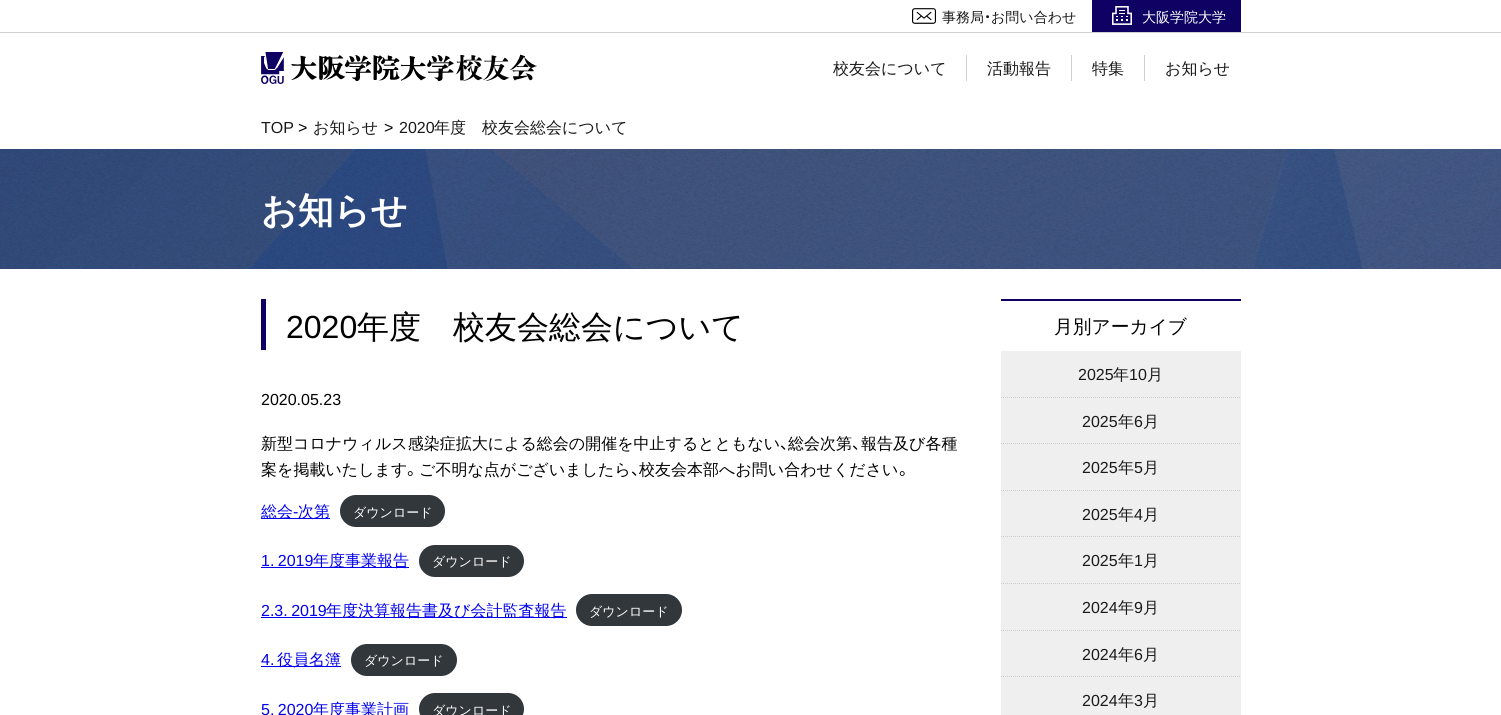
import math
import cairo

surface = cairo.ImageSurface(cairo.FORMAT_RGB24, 1501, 715)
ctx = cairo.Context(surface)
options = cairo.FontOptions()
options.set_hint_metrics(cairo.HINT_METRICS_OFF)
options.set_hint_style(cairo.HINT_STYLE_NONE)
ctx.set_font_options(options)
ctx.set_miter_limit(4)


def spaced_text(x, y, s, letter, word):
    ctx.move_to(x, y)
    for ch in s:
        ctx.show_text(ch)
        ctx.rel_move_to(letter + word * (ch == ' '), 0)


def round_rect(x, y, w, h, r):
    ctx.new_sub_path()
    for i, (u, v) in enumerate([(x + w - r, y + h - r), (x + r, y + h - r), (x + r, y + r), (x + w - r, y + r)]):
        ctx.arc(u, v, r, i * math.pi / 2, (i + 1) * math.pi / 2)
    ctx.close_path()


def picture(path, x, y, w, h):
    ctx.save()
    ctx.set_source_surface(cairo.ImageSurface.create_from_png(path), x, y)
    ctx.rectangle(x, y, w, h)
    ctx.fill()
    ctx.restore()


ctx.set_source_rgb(1, 1, 1)
ctx.paint()
picture("img1.png", 912, 8, 24, 16)
ctx.select_font_face("WenQuanYi Zen Hei Medium")
ctx.set_font_size(14)
ctx.set_source_rgb(0.098, 0.098, 0.098)
ctx.move_to(942, 22)
ctx.show_text("事務局")
ctx.select_font_face("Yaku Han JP")
ctx.move_to(984, 22)
ctx.show_text("・")
ctx.select_font_face("WenQuanYi Zen Hei Medium")
ctx.move_to(991, 22)
ctx.show_text("お問い合わせ")
ctx.set_source_rgb(0.059, 0, 0.388)
ctx.rectangle(1092, 0, 149, 32)
ctx.fill()
picture("img2.png", 1112, 6, 20, 19)
ctx.set_source_rgb(1, 1, 1)
ctx.move_to(1142, 22)
ctx.show_text("大阪学院大学")
ctx.set_source_rgb(0.824, 0.824, 0.824)
ctx.rectangle(0, 32, 1501, 1)
ctx.fill()
picture("img3.png", 261, 52, 276, 32)
ctx.set_font_size(16)
ctx.set_source_rgb(0.098, 0.098, 0.098)
ctx.move_to(833, 74)
ctx.show_text("校友会について")
ctx.set_source_rgb(0.824, 0.824, 0.824)
ctx.rectangle(966, 55, 1, 26)
ctx.fill()
ctx.set_source_rgb(0.098, 0.098, 0.098)
ctx.move_to(987, 74)
ctx.show_text("活動報告")
ctx.set_source_rgb(0.824, 0.824, 0.824)
ctx.rectangle(1071, 55, 1, 26)
ctx.fill()
ctx.set_source_rgb(0.098, 0.098, 0.098)
ctx.move_to(1092, 74)
ctx.show_text("特集")
ctx.set_source_rgb(0.824, 0.824, 0.824)
ctx.rectangle(1144, 55, 1, 26)
ctx.fill()
ctx.set_source_rgb(0.098, 0.098, 0.098)
ctx.move_to(1165, 74)
ctx.show_text("お知らせ")
ctx.select_font_face("Liberation Sans")
ctx.move_to(261, 133)
ctx.show_text("TOP")
ctx.set_source_rgb(0, 0, 0)
ctx.move_to(298, 133)
ctx.show_text(">")
ctx.select_font_face("WenQuanYi Zen Hei Medium")
ctx.set_source_rgb(0.098, 0.098, 0.098)
ctx.move_to(313, 133)
ctx.show_text("お知らせ")
ctx.select_font_face("Liberation Sans")
ctx.set_source_rgb(0, 0, 0)
ctx.move_to(384, 133)
ctx.show_text(">")
ctx.set_source_rgb(0.098, 0.098, 0.098)
ctx.move_to(399, 133)
ctx.show_text("2020")
ctx.select_font_face("WenQuanYi Zen Hei Medium")
ctx.move_to(434, 133)
ctx.show_text("年度　校友会総会について")
picture("img4.png", 0, 149, 1501, 120)
ctx.select_font_face("WenQuanYi Zen Hei", cairo.FONT_SLANT_NORMAL, cairo.FONT_WEIGHT_BOLD)
ctx.set_font_size(36)
ctx.set_source_rgb(1, 1, 1)
ctx.move_to(261, 223)
ctx.show_text("お知らせ")
ctx.set_source_rgb(0.059, 0, 0.388)
ctx.rectangle(261, 299, 5, 51)
ctx.fill()
ctx.select_font_face("Liberation Sans")
ctx.set_font_size(32)
ctx.set_source_rgb(0, 0, 0)
ctx.move_to(286, 338)
ctx.show_text("2020")
ctx.select_font_face("WenQuanYi Zen Hei Medium")
ctx.move_to(357, 338)
ctx.show_text("年度　校友会総会について")
ctx.select_font_face("Liberation Sans")
ctx.set_font_size(16)
ctx.move_to(261, 405)
ctx.show_text("2020.05.23")
ctx.select_font_face("WenQuanYi Zen Hei Medium")
ctx.move_to(261, 449)
ctx.show_text("新型コロナウィルス感染症拡大による総会の開催を中止するとともない")
ctx.select_font_face("Yaku Han JP")
ctx.move_to(780, 449)
ctx.show_text("、")
ctx.select_font_face("WenQuanYi Zen Hei Medium")
ctx.move_to(788, 449)
ctx.show_text("総会次第")
ctx.select_font_face("Yaku Han JP")
ctx.move_to(852, 449)
ctx.show_text("、")
ctx.select_font_face("WenQuanYi Zen Hei Medium")
ctx.move_to(861, 449)
ctx.show_text("報告及び各種")
ctx.move_to(261, 475)
ctx.show_text("案を掲載いたします")
ctx.select_font_face("Yaku Han JP")
ctx.move_to(407, 475)
ctx.show_text("。")
ctx.select_font_face("WenQuanYi Zen Hei Medium")
ctx.move_to(419, 475)
ctx.show_text("ご不明な点がございましたら")
ctx.select_font_face("Yaku Han JP")
ctx.move_to(631, 475)
ctx.show_text("、")
ctx.select_font_face("WenQuanYi Zen Hei Medium")
ctx.move_to(639, 475)
ctx.show_text("校友会本部へお問い合わせください")
ctx.select_font_face("Yaku Han JP")
ctx.move_to(899, 475)
ctx.show_text("。")
ctx.set_source_rgb(0, 0, 0.933)
ctx.rectangle(261, 518, 69, 1)
ctx.fill()
ctx.select_font_face("WenQuanYi Zen Hei Medium")
ctx.move_to(261, 517)
ctx.show_text("総会")
ctx.select_font_face("Liberation Sans")
ctx.move_to(293, 517)
ctx.show_text("-")
ctx.select_font_face("WenQuanYi Zen Hei Medium")
ctx.move_to(298, 517)
ctx.show_text("次第")
ctx.set_source_rgb(0.196, 0.216, 0.235)
round_rect(340, 495, 105, 32, 16)
ctx.fill()
ctx.set_font_size(13)
ctx.set_source_rgb(1, 1, 1)
ctx.move_to(353, 517)
ctx.show_text("ダウンロード")
ctx.select_font_face("Liberation Sans")
ctx.set_font_size(16)
ctx.set_source_rgb(0, 0, 0.933)
spaced_text(261, 566, "1. 2019", 0, -1)
ctx.rectangle(261, 567, 148, 1)
ctx.fill()
ctx.select_font_face("WenQuanYi Zen Hei Medium")
ctx.move_to(313, 566)
ctx.show_text("年度事業報告")
ctx.set_source_rgb(0.196, 0.216, 0.235)
round_rect(419, 545, 105, 32, 16)
ctx.fill()
ctx.set_font_size(13)
ctx.set_source_rgb(1, 1, 1)
ctx.move_to(432, 566)
ctx.show_text("ダウンロード")
ctx.select_font_face("Liberation Sans")
ctx.set_font_size(16)
ctx.set_source_rgb(0, 0, 0.933)
spaced_text(261, 616, "2.3. 2019", 0, -1)
ctx.rectangle(261, 617, 306, 1)
ctx.fill()
ctx.select_font_face("WenQuanYi Zen Hei Medium")
ctx.move_to(326, 616)
ctx.show_text("年度決算報告書及び会計監査報告")
ctx.set_source_rgb(0.196, 0.216, 0.235)
round_rect(576, 594, 106, 32, 16)
ctx.fill()
ctx.set_font_size(13)
ctx.set_source_rgb(1, 1, 1)
ctx.move_to(589, 616)
ctx.show_text("ダウンロード")
ctx.select_font_face("Liberation Sans")
ctx.set_font_size(16)
ctx.set_source_rgb(0, 0, 0.933)
ctx.move_to(261, 665)
ctx.show_text("4.")
ctx.rectangle(261, 666, 80, 1)
ctx.fill()
ctx.select_font_face("WenQuanYi Zen Hei Medium")
ctx.move_to(277, 665)
ctx.show_text("役員名簿")
ctx.set_source_rgb(0.196, 0.216, 0.235)
round_rect(351, 644, 106, 32, 16)
ctx.fill()
ctx.set_font_size(13)
ctx.set_source_rgb(1, 1, 1)
ctx.move_to(364, 665)
ctx.show_text("ダウンロード")
ctx.select_font_face("Liberation Sans")
ctx.set_font_size(16)
ctx.set_source_rgb(0, 0, 0.933)
spaced_text(261, 715, "5. 2020", 0, -1)
ctx.select_font_face("WenQuanYi Zen Hei Medium")
ctx.move_to(313, 715)
ctx.show_text("年度事業計画")
ctx.set_source_rgb(0.196, 0.216, 0.235)
round_rect(419, 693, 105, 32, 16)
ctx.fill()
ctx.set_font_size(13)
ctx.set_source_rgb(1, 1, 1)
ctx.move_to(432, 715)
ctx.show_text("ダウンロード")
ctx.set_source_rgb(0.937, 0.937, 0.937)
ctx.rectangle(1001, 351, 240, 364)
ctx.fill()
ctx.set_source_rgb(0.059, 0, 0.388)
ctx.rectangle(1001, 299, 240, 2)
ctx.fill()
ctx.set_font_size(18.75)
ctx.set_source_rgb(0, 0, 0)
ctx.move_to(1054, 333)
ctx.show_text("月別アーカイブ")
ctx.select_font_face("Liberation Sans")
ctx.set_font_size(16)
ctx.set_source_rgb(0.098, 0.098, 0.098)
ctx.move_to(1078, 380)
ctx.show_text("2025")
ctx.select_font_face("WenQuanYi Zen Hei Medium")
ctx.move_to(1113, 380)
ctx.show_text("年")
ctx.select_font_face("Liberation Sans")
ctx.move_to(1129, 380)
ctx.show_text("10")
ctx.select_font_face("WenQuanYi Zen Hei Medium")
ctx.move_to(1147, 380)
ctx.show_text("月")
ctx.new_path()
ctx.move_to(1001, 397.5)
ctx.line_to(1241, 397.5)
ctx.set_source_rgb(0.8, 0.8, 0.8)
ctx.set_line_width(1)
ctx.set_dash([1, 1])
ctx.stroke()
ctx.select_font_face("Liberation Sans")
ctx.set_source_rgb(0.098, 0.098, 0.098)
ctx.move_to(1082, 427)
ctx.show_text("2025")
ctx.select_font_face("WenQuanYi Zen Hei Medium")
ctx.move_to(1118, 427)
ctx.show_text("年")
ctx.select_font_face("Liberation Sans")
ctx.move_to(1134, 427)
ctx.show_text("6")
ctx.select_font_face("WenQuanYi Zen Hei Medium")
ctx.move_to(1143, 427)
ctx.show_text("月")
ctx.new_path()
ctx.move_to(1001, 443.5)
ctx.line_to(1241, 443.5)
ctx.set_source_rgb(0.8, 0.8, 0.8)
ctx.stroke()
ctx.select_font_face("Liberation Sans")
ctx.set_source_rgb(0.098, 0.098, 0.098)
ctx.move_to(1082, 473)
ctx.show_text("2025")
ctx.select_font_face("WenQuanYi Zen Hei Medium")
ctx.move_to(1118, 473)
ctx.show_text("年")
ctx.select_font_face("Liberation Sans")
ctx.move_to(1134, 473)
ctx.show_text("5")
ctx.select_font_face("WenQuanYi Zen Hei Medium")
ctx.move_to(1143, 473)
ctx.show_text("月")
ctx.new_path()
ctx.move_to(1001, 490.5)
ctx.line_to(1241, 490.5)
ctx.set_source_rgb(0.8, 0.8, 0.8)
ctx.stroke()
ctx.select_font_face("Liberation Sans")
ctx.set_source_rgb(0.098, 0.098, 0.098)
ctx.move_to(1082, 520)
ctx.show_text("2025")
ctx.select_font_face("WenQuanYi Zen Hei Medium")
ctx.move_to(1118, 520)
ctx.show_text("年")
ctx.select_font_face("Liberation Sans")
ctx.move_to(1134, 520)
ctx.show_text("4")
ctx.select_font_face("WenQuanYi Zen Hei Medium")
ctx.move_to(1143, 520)
ctx.show_text("月")
ctx.new_path()
ctx.move_to(1001, 536.5)
ctx.line_to(1241, 536.5)
ctx.set_source_rgb(0.8, 0.8, 0.8)
ctx.stroke()
ctx.select_font_face("Liberation Sans")
ctx.set_source_rgb(0.098, 0.098, 0.098)
ctx.move_to(1082, 566)
ctx.show_text("2025")
ctx.select_font_face("WenQuanYi Zen Hei Medium")
ctx.move_to(1118, 566)
ctx.show_text("年")
ctx.select_font_face("Liberation Sans")
ctx.move_to(1134, 566)
ctx.show_text("1")
ctx.select_font_face("WenQuanYi Zen Hei Medium")
ctx.move_to(1143, 566)
ctx.show_text("月")
ctx.new_path()
ctx.move_to(1001, 583.5)
ctx.line_to(1241, 583.5)
ctx.set_source_rgb(0.8, 0.8, 0.8)
ctx.stroke()
ctx.select_font_face("Liberation Sans")
ctx.set_source_rgb(0.098, 0.098, 0.098)
ctx.move_to(1082, 613)
ctx.show_text("2024")
ctx.select_font_face("WenQuanYi Zen Hei Medium")
ctx.move_to(1118, 613)
ctx.show_text("年")
ctx.select_font_face("Liberation Sans")
ctx.move_to(1134, 613)
ctx.show_text("9")
ctx.select_font_face("WenQuanYi Zen Hei Medium")
ctx.move_to(1143, 613)
ctx.show_text("月")
ctx.new_path()
ctx.move_to(1001, 630.5)
ctx.line_to(1241, 630.5)
ctx.set_source_rgb(0.8, 0.8, 0.8)
ctx.stroke()
ctx.select_font_face("Liberation Sans")
ctx.set_source_rgb(0.098, 0.098, 0.098)
ctx.move_to(1082, 660)
ctx.show_text("2024")
ctx.select_font_face("WenQuanYi Zen Hei Medium")
ctx.move_to(1118, 660)
ctx.show_text("年")
ctx.select_font_face("Liberation Sans")
ctx.move_to(1134, 660)
ctx.show_text("6")
ctx.select_font_face("WenQuanYi Zen Hei Medium")
ctx.move_to(1143, 660)
ctx.show_text("月")
ctx.new_path()
ctx.move_to(1001, 676.5)
ctx.line_to(1241, 676.5)
ctx.set_source_rgb(0.8, 0.8, 0.8)
ctx.stroke()
ctx.select_font_face("Liberation Sans")
ctx.set_source_rgb(0.098, 0.098, 0.098)
ctx.move_to(1082, 706)
ctx.show_text("2024")
ctx.select_font_face("WenQuanYi Zen Hei Medium")
ctx.move_to(1118, 706)
ctx.show_text("年")
ctx.select_font_face("Liberation Sans")
ctx.move_to(1134, 706)
ctx.show_text("3")
ctx.select_font_face("WenQuanYi Zen Hei Medium")
ctx.move_to(1143, 706)
ctx.show_text("月")
surface.write_to_png("page.png")
